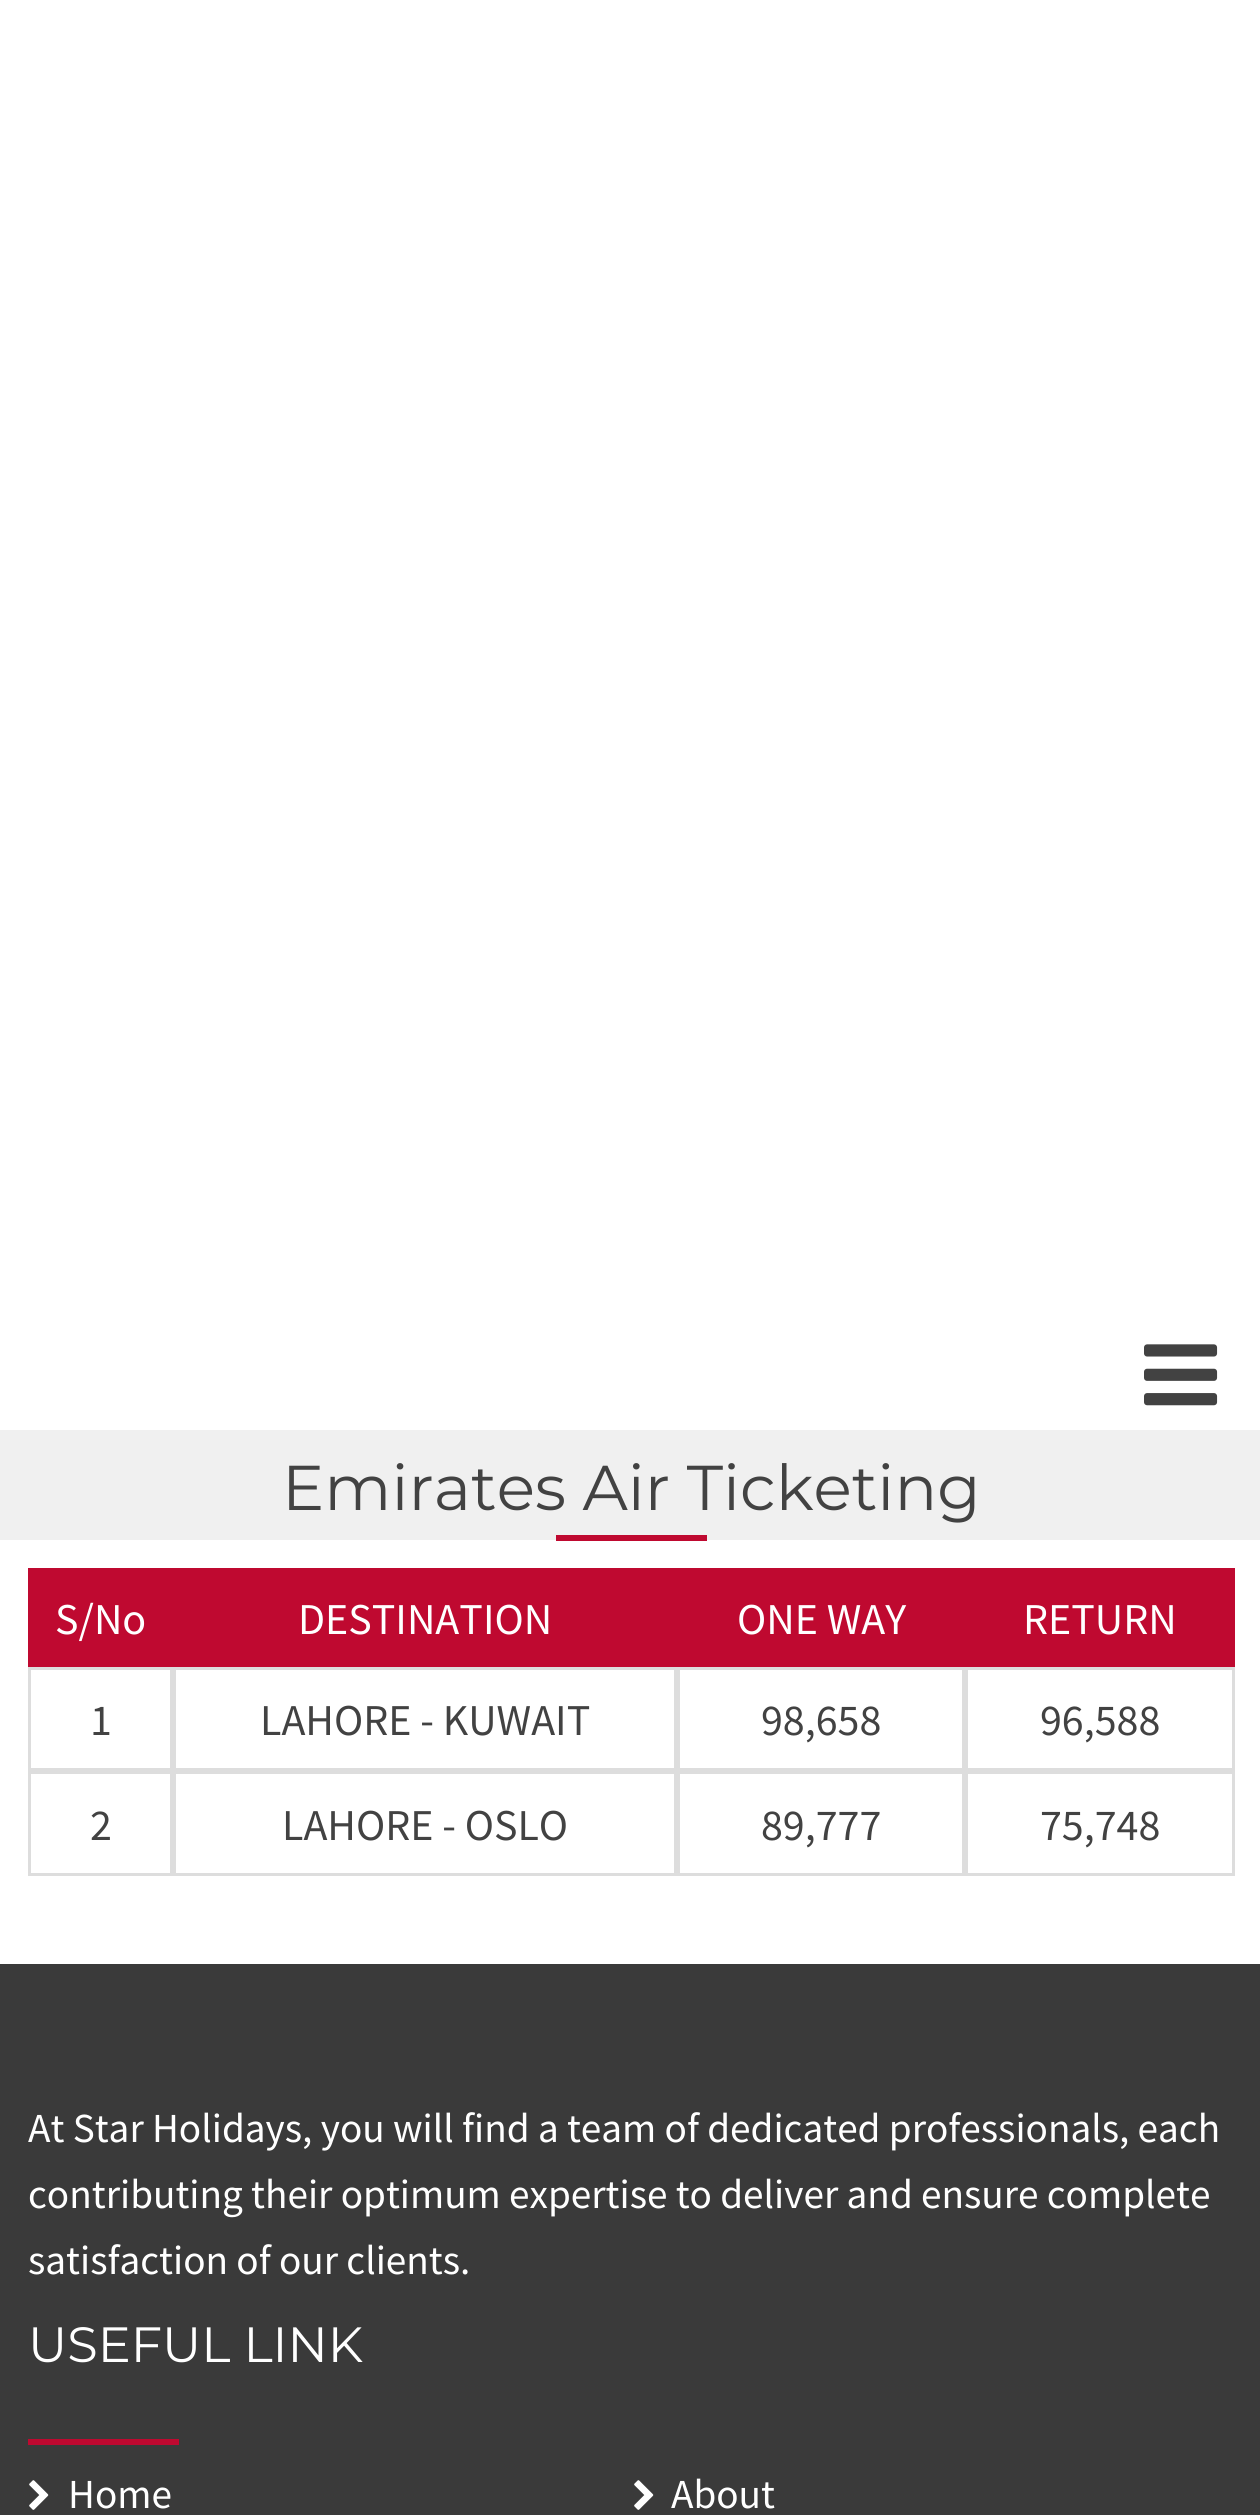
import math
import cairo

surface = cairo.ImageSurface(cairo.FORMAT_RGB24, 1260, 2515)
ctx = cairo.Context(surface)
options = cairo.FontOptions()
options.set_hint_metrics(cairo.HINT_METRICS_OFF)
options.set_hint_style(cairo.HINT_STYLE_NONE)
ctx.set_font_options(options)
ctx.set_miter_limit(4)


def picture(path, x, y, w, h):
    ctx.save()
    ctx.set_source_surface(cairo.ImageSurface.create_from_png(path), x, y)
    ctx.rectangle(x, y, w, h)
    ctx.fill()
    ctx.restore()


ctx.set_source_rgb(1, 1, 1)
ctx.paint()
picture("img1.png", 1144, 1344, 74, 62)
ctx.set_source_rgb(0.941, 0.941, 0.941)
ctx.rectangle(0, 1430, 1260, 110)
ctx.fill()
ctx.select_font_face("Montserrat")
ctx.set_font_size(63.25)
ctx.set_source_rgb(0.259, 0.259, 0.259)
ctx.move_to(282, 1510)
ctx.show_text("Emirates Air Ticketing")
ctx.set_source_rgb(0.749, 0.039, 0.188)
ctx.rectangle(556, 1535, 151, 6)
ctx.fill()
ctx.rectangle(28, 1568, 1207, 99)
ctx.fill()
ctx.select_font_face("Source Sans Pro")
ctx.set_font_size(44)
ctx.set_source_rgb(1, 1, 1)
ctx.move_to(55, 1634)
ctx.show_text("S/No")
ctx.move_to(298, 1634)
ctx.show_text("DESTINATION")
ctx.move_to(737, 1634)
ctx.show_text("ONE WAY")
ctx.move_to(1023, 1634)
ctx.show_text("RETURN")
ctx.rectangle(29.5, 1668.5, 142, 101)
ctx.set_source_rgb(0.867, 0.867, 0.867)
ctx.set_line_width(3)
ctx.stroke()
ctx.set_source_rgb(0.259, 0.259, 0.259)
ctx.move_to(90, 1735)
ctx.show_text("1")
ctx.rectangle(174.5, 1668.5, 501, 101)
ctx.set_source_rgb(0.867, 0.867, 0.867)
ctx.stroke()
ctx.set_source_rgb(0.259, 0.259, 0.259)
ctx.move_to(260, 1735)
ctx.show_text("LAHORE - KUWAIT")
ctx.rectangle(678.5, 1668.5, 285, 101)
ctx.set_source_rgb(0.867, 0.867, 0.867)
ctx.stroke()
ctx.set_source_rgb(0.259, 0.259, 0.259)
ctx.move_to(761, 1735)
ctx.show_text("98,658")
ctx.rectangle(966.5, 1668.5, 267, 101)
ctx.set_source_rgb(0.867, 0.867, 0.867)
ctx.stroke()
ctx.set_source_rgb(0.259, 0.259, 0.259)
ctx.move_to(1040, 1735)
ctx.show_text("96,588")
ctx.rectangle(29.5, 1772.5, 142, 102)
ctx.set_source_rgb(0.867, 0.867, 0.867)
ctx.stroke()
ctx.set_source_rgb(0.259, 0.259, 0.259)
ctx.move_to(90, 1840)
ctx.show_text("2")
ctx.rectangle(174.5, 1772.5, 501, 102)
ctx.set_source_rgb(0.867, 0.867, 0.867)
ctx.stroke()
ctx.set_source_rgb(0.259, 0.259, 0.259)
ctx.move_to(282, 1840)
ctx.show_text("LAHORE - OSLO")
ctx.rectangle(678.5, 1772.5, 285, 102)
ctx.set_source_rgb(0.867, 0.867, 0.867)
ctx.stroke()
ctx.set_source_rgb(0.259, 0.259, 0.259)
ctx.move_to(761, 1840)
ctx.show_text("89,777")
ctx.rectangle(966.5, 1772.5, 267, 102)
ctx.set_source_rgb(0.867, 0.867, 0.867)
ctx.stroke()
ctx.set_source_rgb(0.259, 0.259, 0.259)
ctx.move_to(1040, 1840)
ctx.show_text("75,748")
ctx.set_source_rgb(0.227, 0.227, 0.227)
ctx.rectangle(0, 1964, 1260, 551)
ctx.fill()
ctx.set_font_size(41.25)
ctx.set_source_rgb(1, 1, 1)
ctx.move_to(28, 2142)
ctx.show_text("At Star Holidays, you will find a team of dedicated professionals, each")
ctx.move_to(28, 2208)
ctx.show_text("contributing their optimum expertise to deliver and ensure complete")
ctx.move_to(28, 2274)
ctx.show_text("satisfaction of our clients.")
ctx.select_font_face("Montserrat")
ctx.set_font_size(49.5)
ctx.move_to(28, 2362)
ctx.show_text("USEFUL LINK")
ctx.set_source_rgb(0.749, 0.039, 0.188)
ctx.rectangle(28, 2439, 151, 6)
ctx.fill()
picture("img2.png", 29, 2480, 20, 30)
ctx.select_font_face("Source Sans Pro")
ctx.set_font_size(41.25)
ctx.set_source_rgb(1, 1, 1)
ctx.move_to(68, 2508)
ctx.show_text("Home")
picture("img2.png", 634, 2480, 20, 30)
ctx.move_to(671, 2508)
ctx.show_text("About")
surface.write_to_png("page.png")
